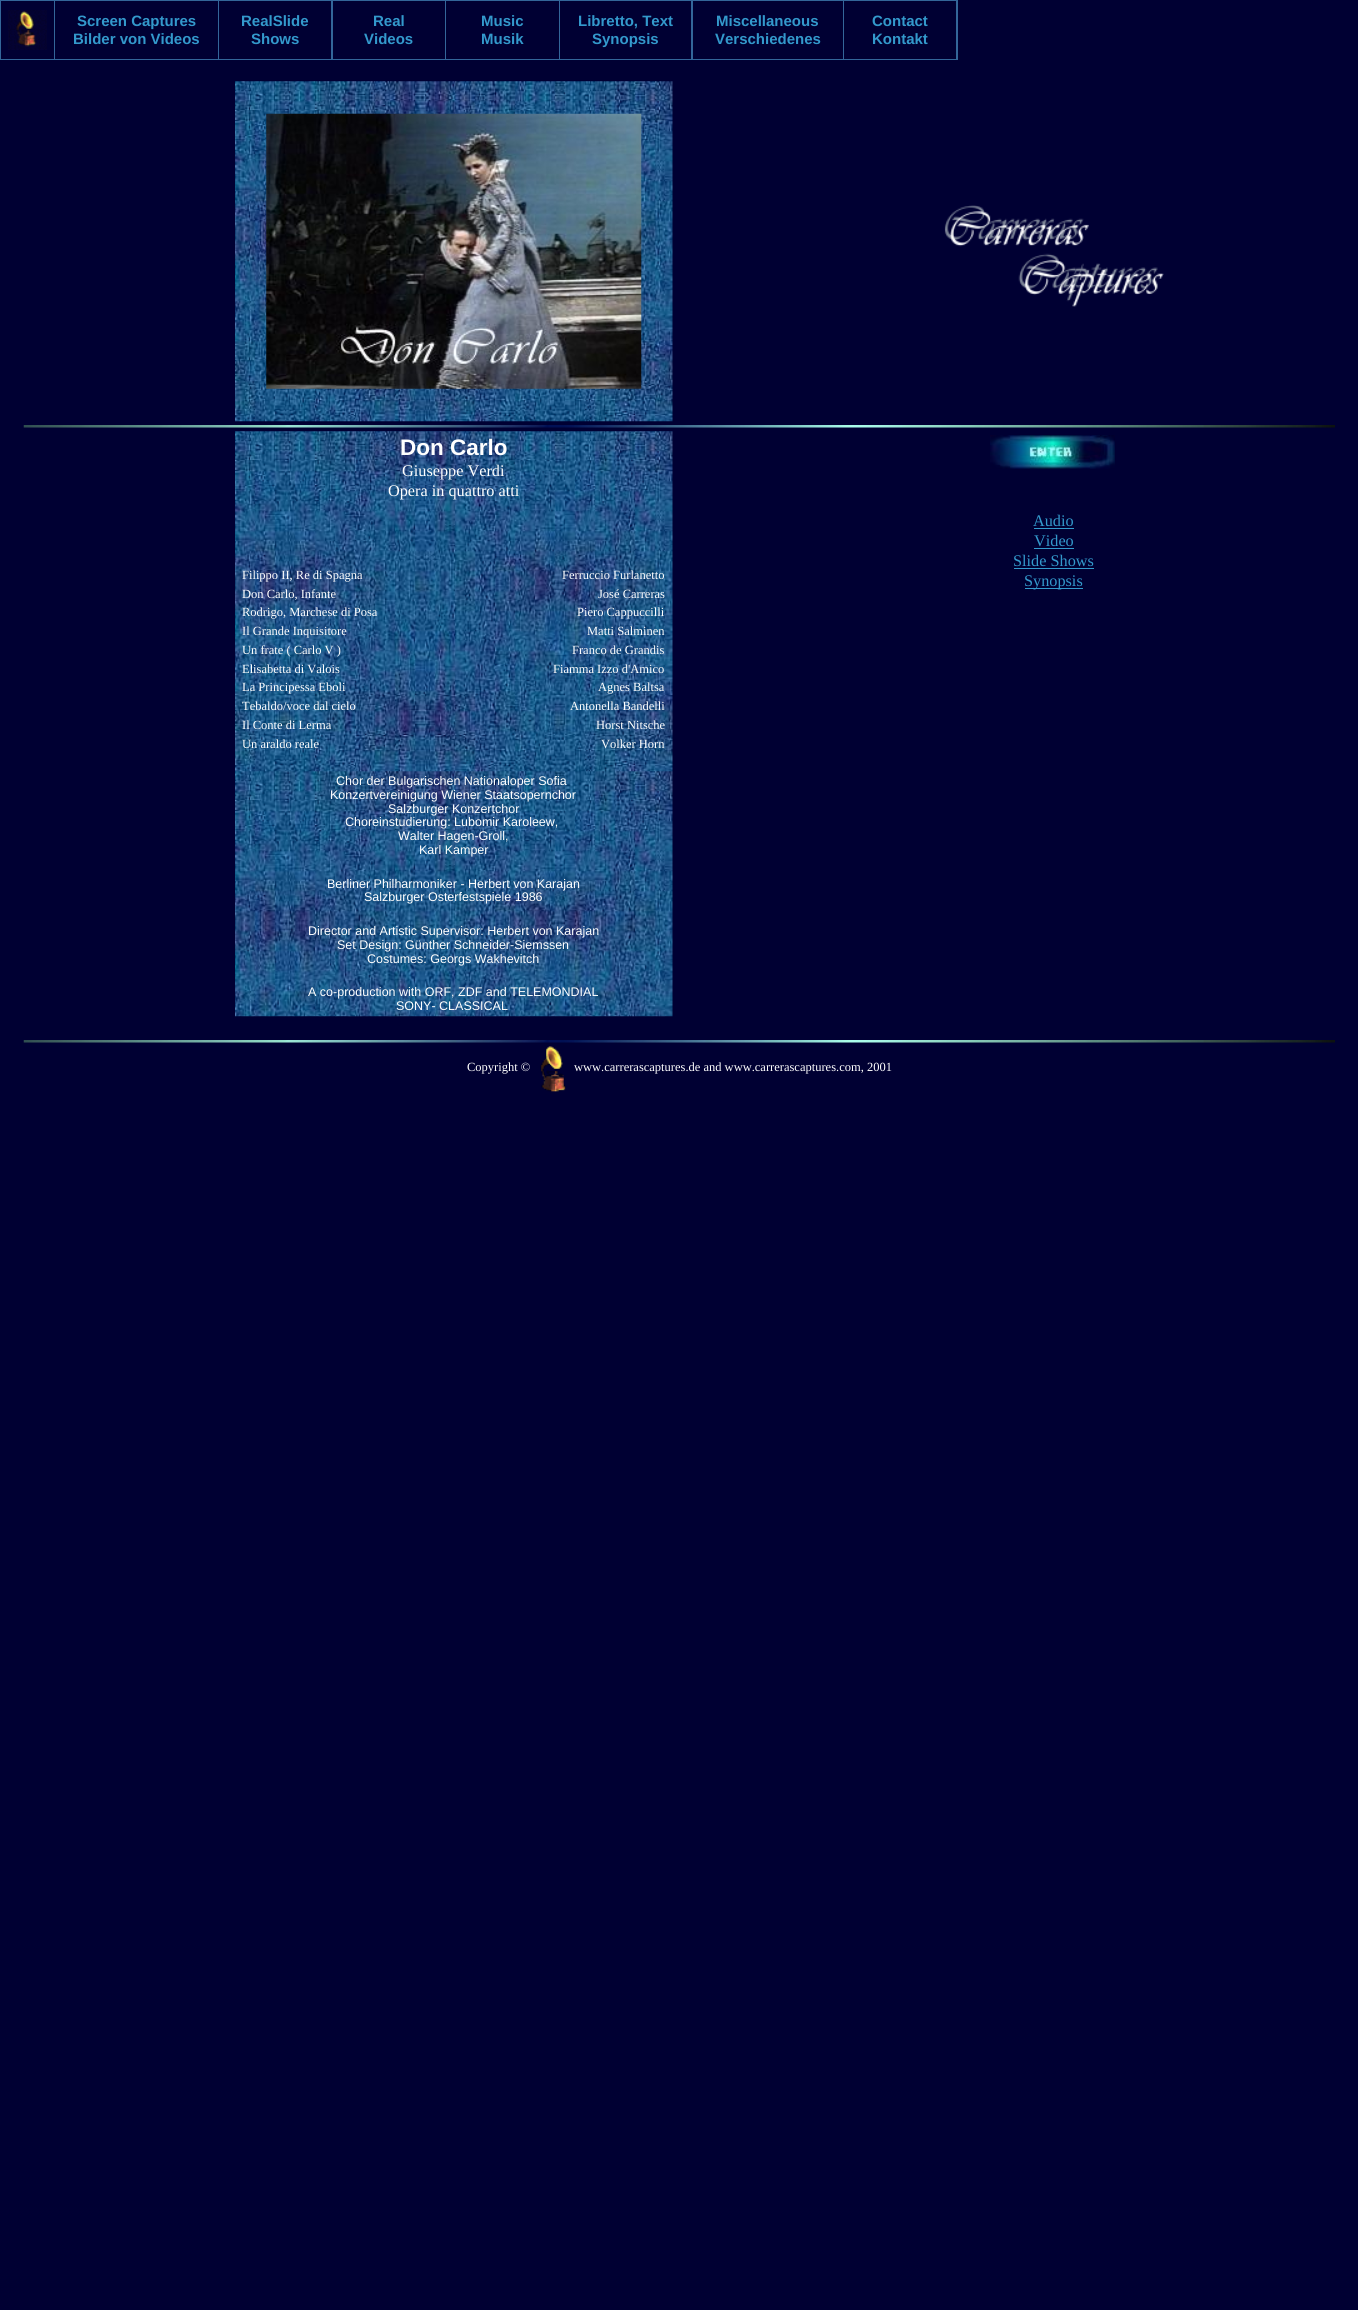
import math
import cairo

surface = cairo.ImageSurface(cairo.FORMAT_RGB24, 1358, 2310)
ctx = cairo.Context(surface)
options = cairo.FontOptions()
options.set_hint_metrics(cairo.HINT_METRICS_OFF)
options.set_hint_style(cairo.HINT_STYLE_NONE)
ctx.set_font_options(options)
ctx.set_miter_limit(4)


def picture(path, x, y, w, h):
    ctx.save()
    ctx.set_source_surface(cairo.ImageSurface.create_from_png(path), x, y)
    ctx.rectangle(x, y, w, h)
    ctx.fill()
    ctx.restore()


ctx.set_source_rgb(0, 0, 0.2)
ctx.paint()
ctx.set_source_rgb(0.2, 0.4, 0.6)
ctx.rectangle(0, 0, 958, 60)
ctx.fill()
ctx.set_source_rgb(0, 0, 0.2)
ctx.rectangle(1, 1, 53, 58)
ctx.fill()
picture("img1.png", 8, 10, 39, 40)
ctx.rectangle(55, 1, 163, 58)
ctx.fill()
ctx.select_font_face("Liberation Sans", cairo.FONT_SLANT_NORMAL, cairo.FONT_WEIGHT_BOLD)
ctx.set_font_size(15)
ctx.set_source_rgb(0.2, 0.6, 0.8)
ctx.move_to(77, 26)
ctx.show_text("Screen Captures")
ctx.move_to(73, 44)
ctx.show_text("Bilder von Videos")
ctx.set_source_rgb(0, 0, 0.2)
ctx.rectangle(219, 1, 112, 58)
ctx.fill()
ctx.set_source_rgb(0.2, 0.6, 0.8)
ctx.move_to(241, 26)
ctx.show_text("RealSlide")
ctx.move_to(251, 44)
ctx.show_text("Shows")
ctx.set_source_rgb(0, 0, 0.2)
ctx.rectangle(333, 1, 112, 58)
ctx.fill()
ctx.set_source_rgb(0.2, 0.6, 0.8)
ctx.move_to(373, 26)
ctx.show_text("Real")
ctx.move_to(364, 44)
ctx.show_text("Videos")
ctx.set_source_rgb(0, 0, 0.2)
ctx.rectangle(446, 1, 113, 58)
ctx.fill()
ctx.set_source_rgb(0.2, 0.6, 0.8)
ctx.move_to(481, 26)
ctx.show_text("Music")
ctx.move_to(481, 44)
ctx.show_text("Musik")
ctx.set_source_rgb(0, 0, 0.2)
ctx.rectangle(560, 1, 131, 58)
ctx.fill()
ctx.set_source_rgb(0.2, 0.6, 0.8)
ctx.move_to(578, 26)
ctx.show_text("Libretto, Text")
ctx.move_to(592, 44)
ctx.show_text("Synopsis")
ctx.set_source_rgb(0, 0, 0.2)
ctx.rectangle(693, 1, 150, 58)
ctx.fill()
ctx.set_source_rgb(0.2, 0.6, 0.8)
ctx.move_to(716, 26)
ctx.show_text("Miscellaneous")
ctx.move_to(715, 44)
ctx.show_text("Verschiedenes")
ctx.set_source_rgb(0, 0, 0.2)
ctx.rectangle(844, 1, 112, 58)
ctx.fill()
ctx.set_source_rgb(0.2, 0.6, 0.8)
ctx.move_to(872, 26)
ctx.show_text("Contact")
ctx.move_to(872, 44)
ctx.show_text("Kontakt")
picture("img2.png", 235, 81, 438, 341)
picture("img3.png", 266, 113, 376, 276)
picture("img4.png", 944, 205, 220, 102)
picture("img5.png", 23, 425, 1312, 3)
picture("img6.png", 235, 431, 438, 586)
ctx.set_font_size(22.5)
ctx.set_source_rgb(1, 1, 1)
ctx.move_to(400, 455)
ctx.show_text("Don Carlo")
ctx.select_font_face("Liberation Serif")
ctx.set_font_size(16.25)
ctx.move_to(402, 476)
ctx.show_text("Giuseppe Verdi")
ctx.move_to(388, 496)
ctx.show_text("Opera in quattro atti")
ctx.set_font_size(12.5)
ctx.move_to(242, 579)
ctx.show_text("Filippo II, Re di Spagna")
ctx.move_to(562, 579)
ctx.show_text("Ferruccio Furlanetto")
ctx.move_to(242, 598)
ctx.show_text("Don Carlo, Infante")
ctx.move_to(598, 598)
ctx.show_text("José Carreras")
ctx.move_to(242, 616)
ctx.show_text("Rodrigo, Marchese di Posa")
ctx.move_to(577, 616)
ctx.show_text("Piero Cappuccilli")
ctx.move_to(242, 635)
ctx.show_text("Il Grande Inquisitore")
ctx.move_to(587, 635)
ctx.show_text("Matti Salminen")
ctx.move_to(242, 654)
ctx.show_text("Un frate ( Carlo V )")
ctx.move_to(572, 654)
ctx.show_text("Franco de Grandis")
ctx.move_to(242, 673)
ctx.show_text("Elisabetta di Valois")
ctx.move_to(553, 673)
ctx.show_text("Fiamma Izzo d'Amico")
ctx.move_to(242, 691)
ctx.show_text("La Principessa Eboli")
ctx.move_to(598, 691)
ctx.show_text("Agnes Baltsa")
ctx.move_to(242, 710)
ctx.show_text("Tebaldo/voce dal cielo")
ctx.move_to(570, 710)
ctx.show_text("Antonella Bandelli")
ctx.move_to(242, 729)
ctx.show_text("Il Conte di Lerma")
ctx.move_to(596, 729)
ctx.show_text("Horst Nitsche")
ctx.move_to(242, 748)
ctx.show_text("Un araldo reale")
ctx.move_to(601, 748)
ctx.show_text("Volker Horn")
ctx.select_font_face("Liberation Sans")
ctx.move_to(336, 785)
ctx.show_text("Chor der Bulgarischen Nationaloper Sofia")
ctx.move_to(330, 799)
ctx.show_text("Konzertvereinigung Wiener Staatsopernchor")
ctx.move_to(388, 813)
ctx.show_text("Salzburger Konzertchor")
ctx.move_to(345, 826)
ctx.show_text("Choreinstudierung: Lubomir Karoleew,")
ctx.move_to(398, 840)
ctx.show_text("Walter Hagen-Groll,")
ctx.move_to(419, 854)
ctx.show_text("Karl Kamper")
ctx.move_to(327, 888)
ctx.show_text("Berliner Philharmoniker - Herbert von Karajan")
ctx.move_to(364, 901)
ctx.show_text("Salzburger Osterfestspiele 1986")
ctx.move_to(308, 935)
ctx.show_text("Director and Artistic Supervisor: Herbert von Karajan")
ctx.move_to(337, 949)
ctx.show_text("Set Design: Günther Schneider-Siemssen")
ctx.move_to(367, 963)
ctx.show_text("Costumes: Georgs Wakhevitch")
ctx.move_to(308, 996)
ctx.show_text("A co-production with ORF, ZDF and TELEMONDIAL")
ctx.move_to(396, 1010)
ctx.show_text("SONY- CLASSICAL")
picture("img7.png", 990, 435, 125, 34)
ctx.select_font_face("Liberation Serif")
ctx.set_font_size(16.25)
ctx.set_source_rgb(0.2, 0.6, 0.8)
ctx.move_to(1033, 526)
ctx.show_text("Audio")
ctx.rectangle(1034, 528, 40, 1)
ctx.fill()
ctx.move_to(1034, 546)
ctx.show_text("Video")
ctx.rectangle(1034, 548, 40, 1)
ctx.fill()
ctx.move_to(1013, 566)
ctx.show_text("Slide Shows")
ctx.rectangle(1014, 568, 80, 1)
ctx.fill()
ctx.rectangle(1025, 588, 58, 1)
ctx.fill()
ctx.move_to(1024, 586)
ctx.show_text("Synopsis")
picture("img5.png", 23, 1040, 1312, 3)
ctx.set_font_size(12.5)
ctx.set_source_rgb(1, 1, 1)
ctx.move_to(467, 1071)
ctx.show_text("Copyright ©")
picture("img8.png", 540, 1046, 26, 46)
ctx.move_to(574, 1071)
ctx.show_text("www.carrerascaptures.de and www.carrerascaptures.com, 2001")
surface.write_to_png("page.png")
